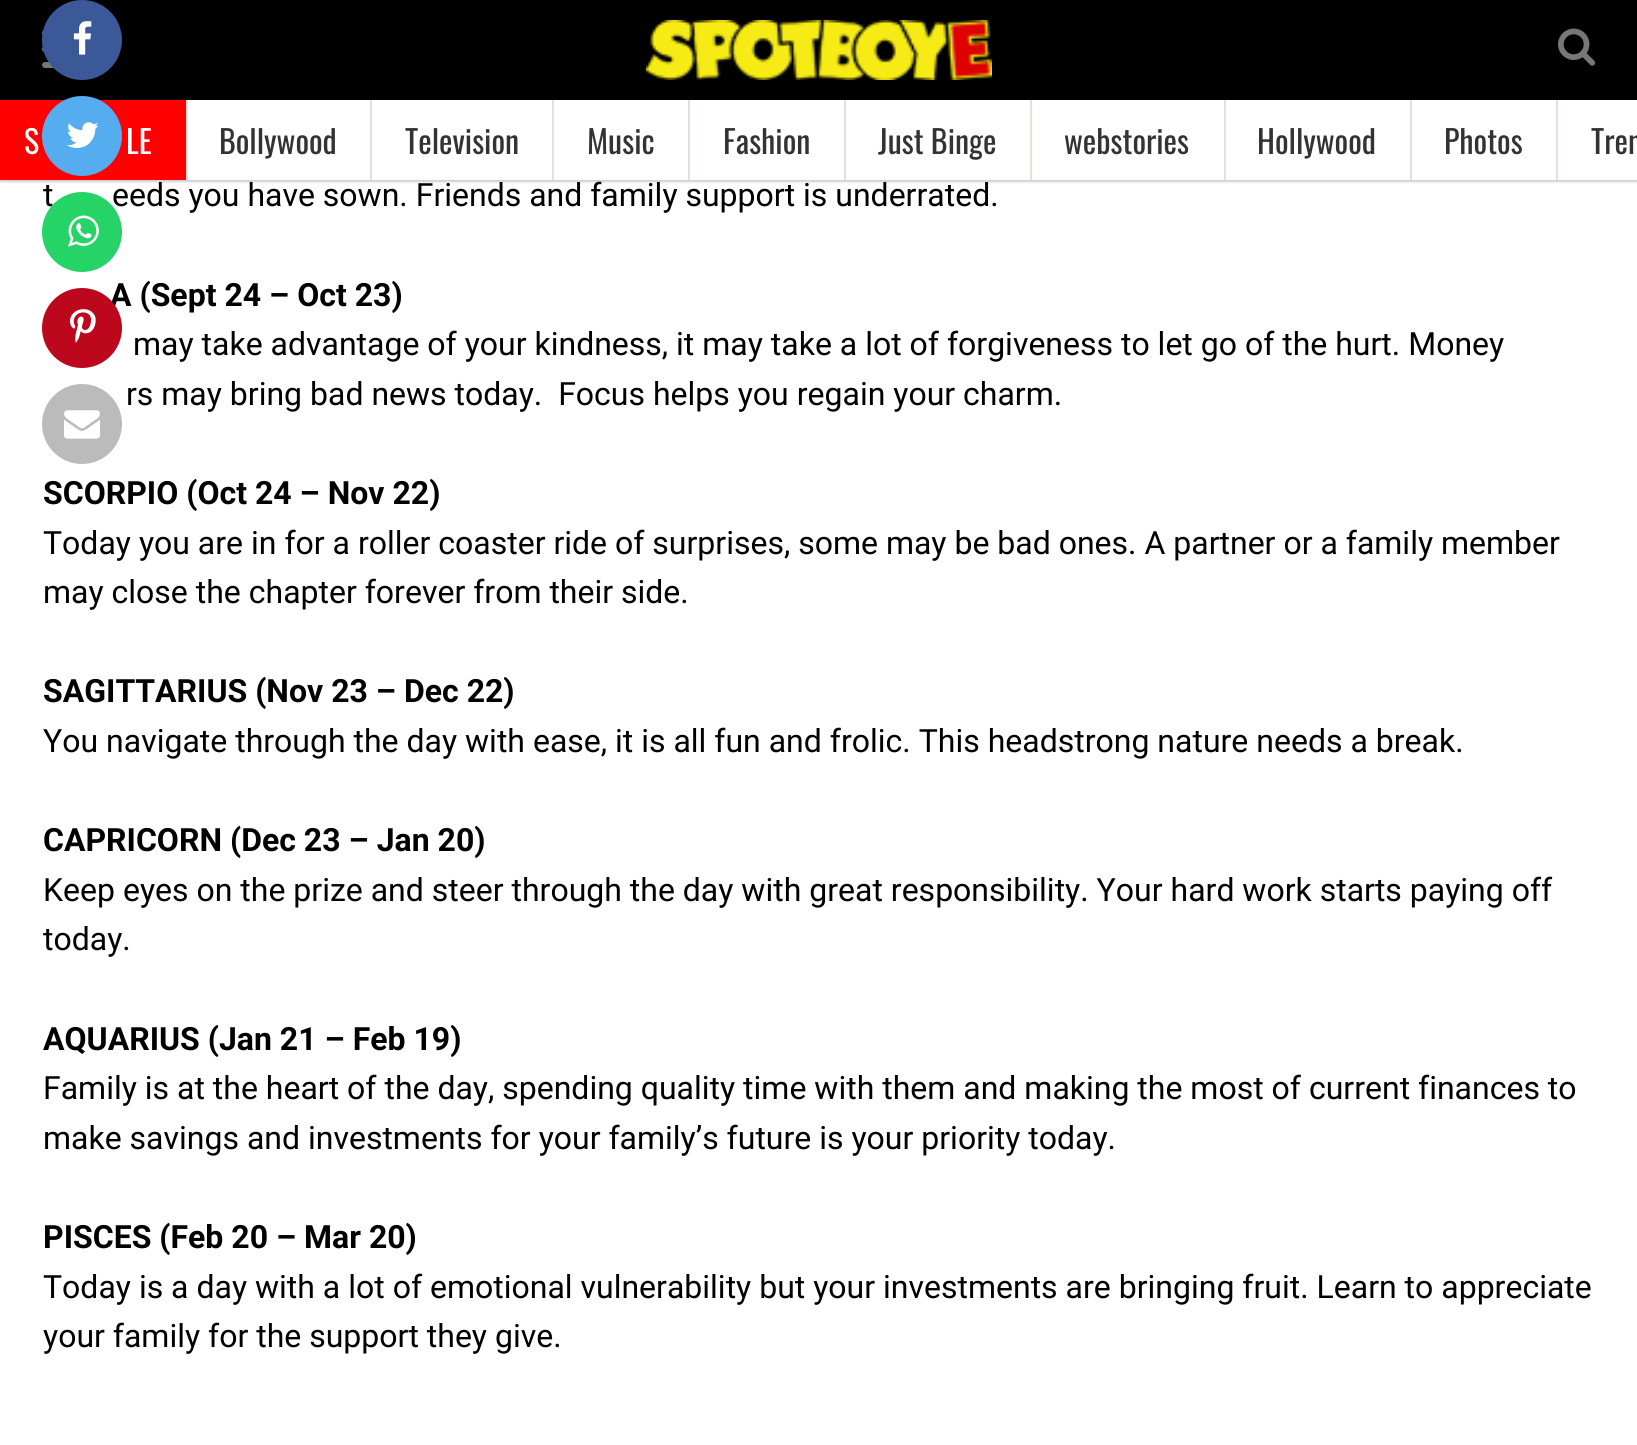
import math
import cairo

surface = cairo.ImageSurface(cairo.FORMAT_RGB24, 1637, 1445)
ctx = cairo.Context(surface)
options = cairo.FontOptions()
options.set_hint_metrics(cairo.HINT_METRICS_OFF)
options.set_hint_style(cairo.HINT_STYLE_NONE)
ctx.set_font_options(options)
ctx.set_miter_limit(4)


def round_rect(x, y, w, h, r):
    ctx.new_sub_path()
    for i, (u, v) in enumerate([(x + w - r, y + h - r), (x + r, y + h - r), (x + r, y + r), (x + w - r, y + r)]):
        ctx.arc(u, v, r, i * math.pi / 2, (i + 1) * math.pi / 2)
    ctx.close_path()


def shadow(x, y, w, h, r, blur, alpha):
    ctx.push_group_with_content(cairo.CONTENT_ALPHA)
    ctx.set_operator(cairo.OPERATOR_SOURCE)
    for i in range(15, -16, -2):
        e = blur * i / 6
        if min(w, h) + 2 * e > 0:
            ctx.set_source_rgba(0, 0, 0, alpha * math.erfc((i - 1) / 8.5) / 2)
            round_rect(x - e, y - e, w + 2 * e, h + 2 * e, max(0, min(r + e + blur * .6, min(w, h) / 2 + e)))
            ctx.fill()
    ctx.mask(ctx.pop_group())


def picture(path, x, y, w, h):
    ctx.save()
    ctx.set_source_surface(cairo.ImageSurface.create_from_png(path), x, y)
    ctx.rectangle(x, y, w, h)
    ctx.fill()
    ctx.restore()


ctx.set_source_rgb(1, 1, 1)
ctx.paint()
ctx.set_source_rgb(0, 0, 0)
ctx.rectangle(0, 0, 1637, 100)
ctx.fill()
ctx.set_source_rgb(0.467, 0.467, 0.467)
round_rect(42, 30, 60, 6, 3)
ctx.fill()
round_rect(42, 46, 48, 6, 3)
ctx.fill()
round_rect(42, 62, 36, 6, 3)
ctx.fill()
picture("img1.png", 646, 20, 346, 60)
picture("img2.png", 1558, 28, 38, 38)
ctx.set_source_rgb(0.808, 0.808, 0.808)
shadow(0, 102, 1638, 80, 0, 1, 1)
ctx.set_source_rgb(1, 1, 1)
ctx.rectangle(188, 100, 1449, 80)
ctx.fill()
ctx.set_source_rgb(1, 0, 0)
ctx.rectangle(0, 100, 186, 80)
ctx.fill()
ctx.set_source_rgb(0.918, 0.867, 0.867)
ctx.rectangle(186, 100, 2, 80)
ctx.fill()
ctx.select_font_face("Oswald")
ctx.set_font_size(32)
ctx.set_source_rgb(1, 1, 1)
ctx.move_to(24, 154)
ctx.show_text("S")
ctx.move_to(126, 154)
ctx.show_text("LE")
ctx.set_source_rgb(0.918, 0.867, 0.867)
ctx.rectangle(370, 100, 2, 80)
ctx.fill()
ctx.set_source_rgb(0.2, 0.2, 0.2)
ctx.move_to(219, 154)
ctx.show_text("Bollywood")
ctx.set_source_rgb(0.918, 0.867, 0.867)
ctx.rectangle(552, 100, 2, 80)
ctx.fill()
ctx.set_source_rgb(0.2, 0.2, 0.2)
ctx.move_to(405, 154)
ctx.show_text("Television")
ctx.set_source_rgb(0.918, 0.867, 0.867)
ctx.rectangle(688, 100, 2, 80)
ctx.fill()
ctx.set_source_rgb(0.2, 0.2, 0.2)
ctx.move_to(587, 154)
ctx.show_text("Music")
ctx.set_source_rgb(0.918, 0.867, 0.867)
ctx.rectangle(844, 100, 2, 80)
ctx.fill()
ctx.set_source_rgb(0.2, 0.2, 0.2)
ctx.move_to(723, 154)
ctx.show_text("Fashion")
ctx.set_source_rgb(0.918, 0.867, 0.867)
ctx.rectangle(1030, 100, 2, 80)
ctx.fill()
ctx.set_source_rgb(0.2, 0.2, 0.2)
ctx.move_to(878, 154)
ctx.show_text("Just Binge")
ctx.set_source_rgb(0.918, 0.867, 0.867)
ctx.rectangle(1224, 100, 2, 80)
ctx.fill()
ctx.set_source_rgb(0.2, 0.2, 0.2)
ctx.move_to(1064, 154)
ctx.show_text("webstories")
ctx.set_source_rgb(0.918, 0.867, 0.867)
ctx.rectangle(1410, 100, 2, 80)
ctx.fill()
ctx.set_source_rgb(0.2, 0.2, 0.2)
ctx.move_to(1257, 154)
ctx.show_text("Hollywood")
ctx.set_source_rgb(0.918, 0.867, 0.867)
ctx.rectangle(1556, 100, 2, 80)
ctx.fill()
ctx.set_source_rgb(0.2, 0.2, 0.2)
ctx.move_to(1444, 154)
ctx.show_text("Photos")
ctx.move_to(1591, 154)
ctx.show_text("Tren")
ctx.set_source_rgb(0.231, 0.349, 0.596)
ctx.new_path()
ctx.arc(82, 40, 40, 0, 2 * math.pi)
ctx.fill()
picture("img3.png", 73, 21, 19, 34)
ctx.set_source_rgb(0.333, 0.675, 0.933)
ctx.arc(82, 136, 40, 0, 2 * math.pi)
ctx.fill()
picture("img4.png", 67, 122, 32, 26)
ctx.select_font_face("Roboto")
ctx.set_source_rgb(0, 0, 0)
ctx.move_to(43, 206)
ctx.show_text("t")
ctx.move_to(112, 206)
ctx.show_text("eeds you have sown. Friends and family support is underrated.")
ctx.set_source_rgb(0.145, 0.827, 0.4)
ctx.new_path()
ctx.arc(82, 232, 40, 0, 2 * math.pi)
ctx.fill()
picture("img5.png", 68, 215, 31, 32)
ctx.select_font_face("Roboto", cairo.FONT_SLANT_NORMAL, cairo.FONT_WEIGHT_BOLD)
ctx.set_source_rgb(0, 0, 0)
ctx.move_to(110, 306)
ctx.show_text("A (Sept 24 – Oct 23)")
ctx.set_source_rgb(0.741, 0.031, 0.11)
ctx.new_path()
ctx.arc(82, 328, 40, 0, 2 * math.pi)
ctx.fill()
picture("img6.png", 70, 309, 26, 34)
ctx.set_source_rgb(0.733, 0.733, 0.733)
ctx.arc(82, 424, 40, 0, 2 * math.pi)
ctx.fill()
picture("img7.png", 64, 410, 36, 29)
ctx.select_font_face("Roboto")
ctx.set_source_rgb(0, 0, 0)
ctx.move_to(133, 355)
ctx.show_text("may take advantage of your kindness, it may take a lot of forgiveness to let go of the hurt. Money")
ctx.move_to(126, 405)
ctx.show_text("rs may bring bad news today.  Focus helps you regain your charm.")
ctx.select_font_face("Roboto", cairo.FONT_SLANT_NORMAL, cairo.FONT_WEIGHT_BOLD)
ctx.move_to(43, 504)
ctx.show_text("SCORPIO (Oct 24 – Nov 22)")
ctx.select_font_face("Roboto")
ctx.move_to(43, 554)
ctx.show_text("Today you are in for a roller coaster ride of surprises, some may be bad ones. A partner or a family member")
ctx.move_to(43, 603)
ctx.show_text("may close the chapter forever from their side.")
ctx.select_font_face("Roboto", cairo.FONT_SLANT_NORMAL, cairo.FONT_WEIGHT_BOLD)
ctx.move_to(43, 702)
ctx.show_text("SAGITTARIUS (Nov 23 – Dec 22)")
ctx.select_font_face("Roboto")
ctx.move_to(43, 752)
ctx.show_text("You navigate through the day with ease, it is all fun and frolic. This headstrong nature needs a break.")
ctx.select_font_face("Roboto", cairo.FONT_SLANT_NORMAL, cairo.FONT_WEIGHT_BOLD)
ctx.move_to(43, 851)
ctx.show_text("CAPRICORN (Dec 23 – Jan 20)")
ctx.select_font_face("Roboto")
ctx.move_to(43, 901)
ctx.show_text("Keep eyes on the prize and steer through the day with great responsibility. Your hard work starts paying off")
ctx.move_to(43, 950)
ctx.show_text("today.")
ctx.select_font_face("Roboto", cairo.FONT_SLANT_NORMAL, cairo.FONT_WEIGHT_BOLD)
ctx.move_to(43, 1050)
ctx.show_text("AQUARIUS (Jan 21 – Feb 19)")
ctx.select_font_face("Roboto")
ctx.move_to(43, 1099)
ctx.show_text("Family is at the heart of the day, spending quality time with them and making the most of current finances to")
ctx.move_to(43, 1149)
ctx.show_text("make savings and investments for your family’s future is your priority today.")
ctx.select_font_face("Roboto", cairo.FONT_SLANT_NORMAL, cairo.FONT_WEIGHT_BOLD)
ctx.move_to(43, 1248)
ctx.show_text("PISCES (Feb 20 – Mar 20)")
ctx.select_font_face("Roboto")
ctx.move_to(43, 1298)
ctx.show_text("Today is a day with a lot of emotional vulnerability but your investments are bringing fruit. Learn to appreciate")
ctx.move_to(43, 1347)
ctx.show_text("your family for the support they give.")
surface.write_to_png("page.png")
